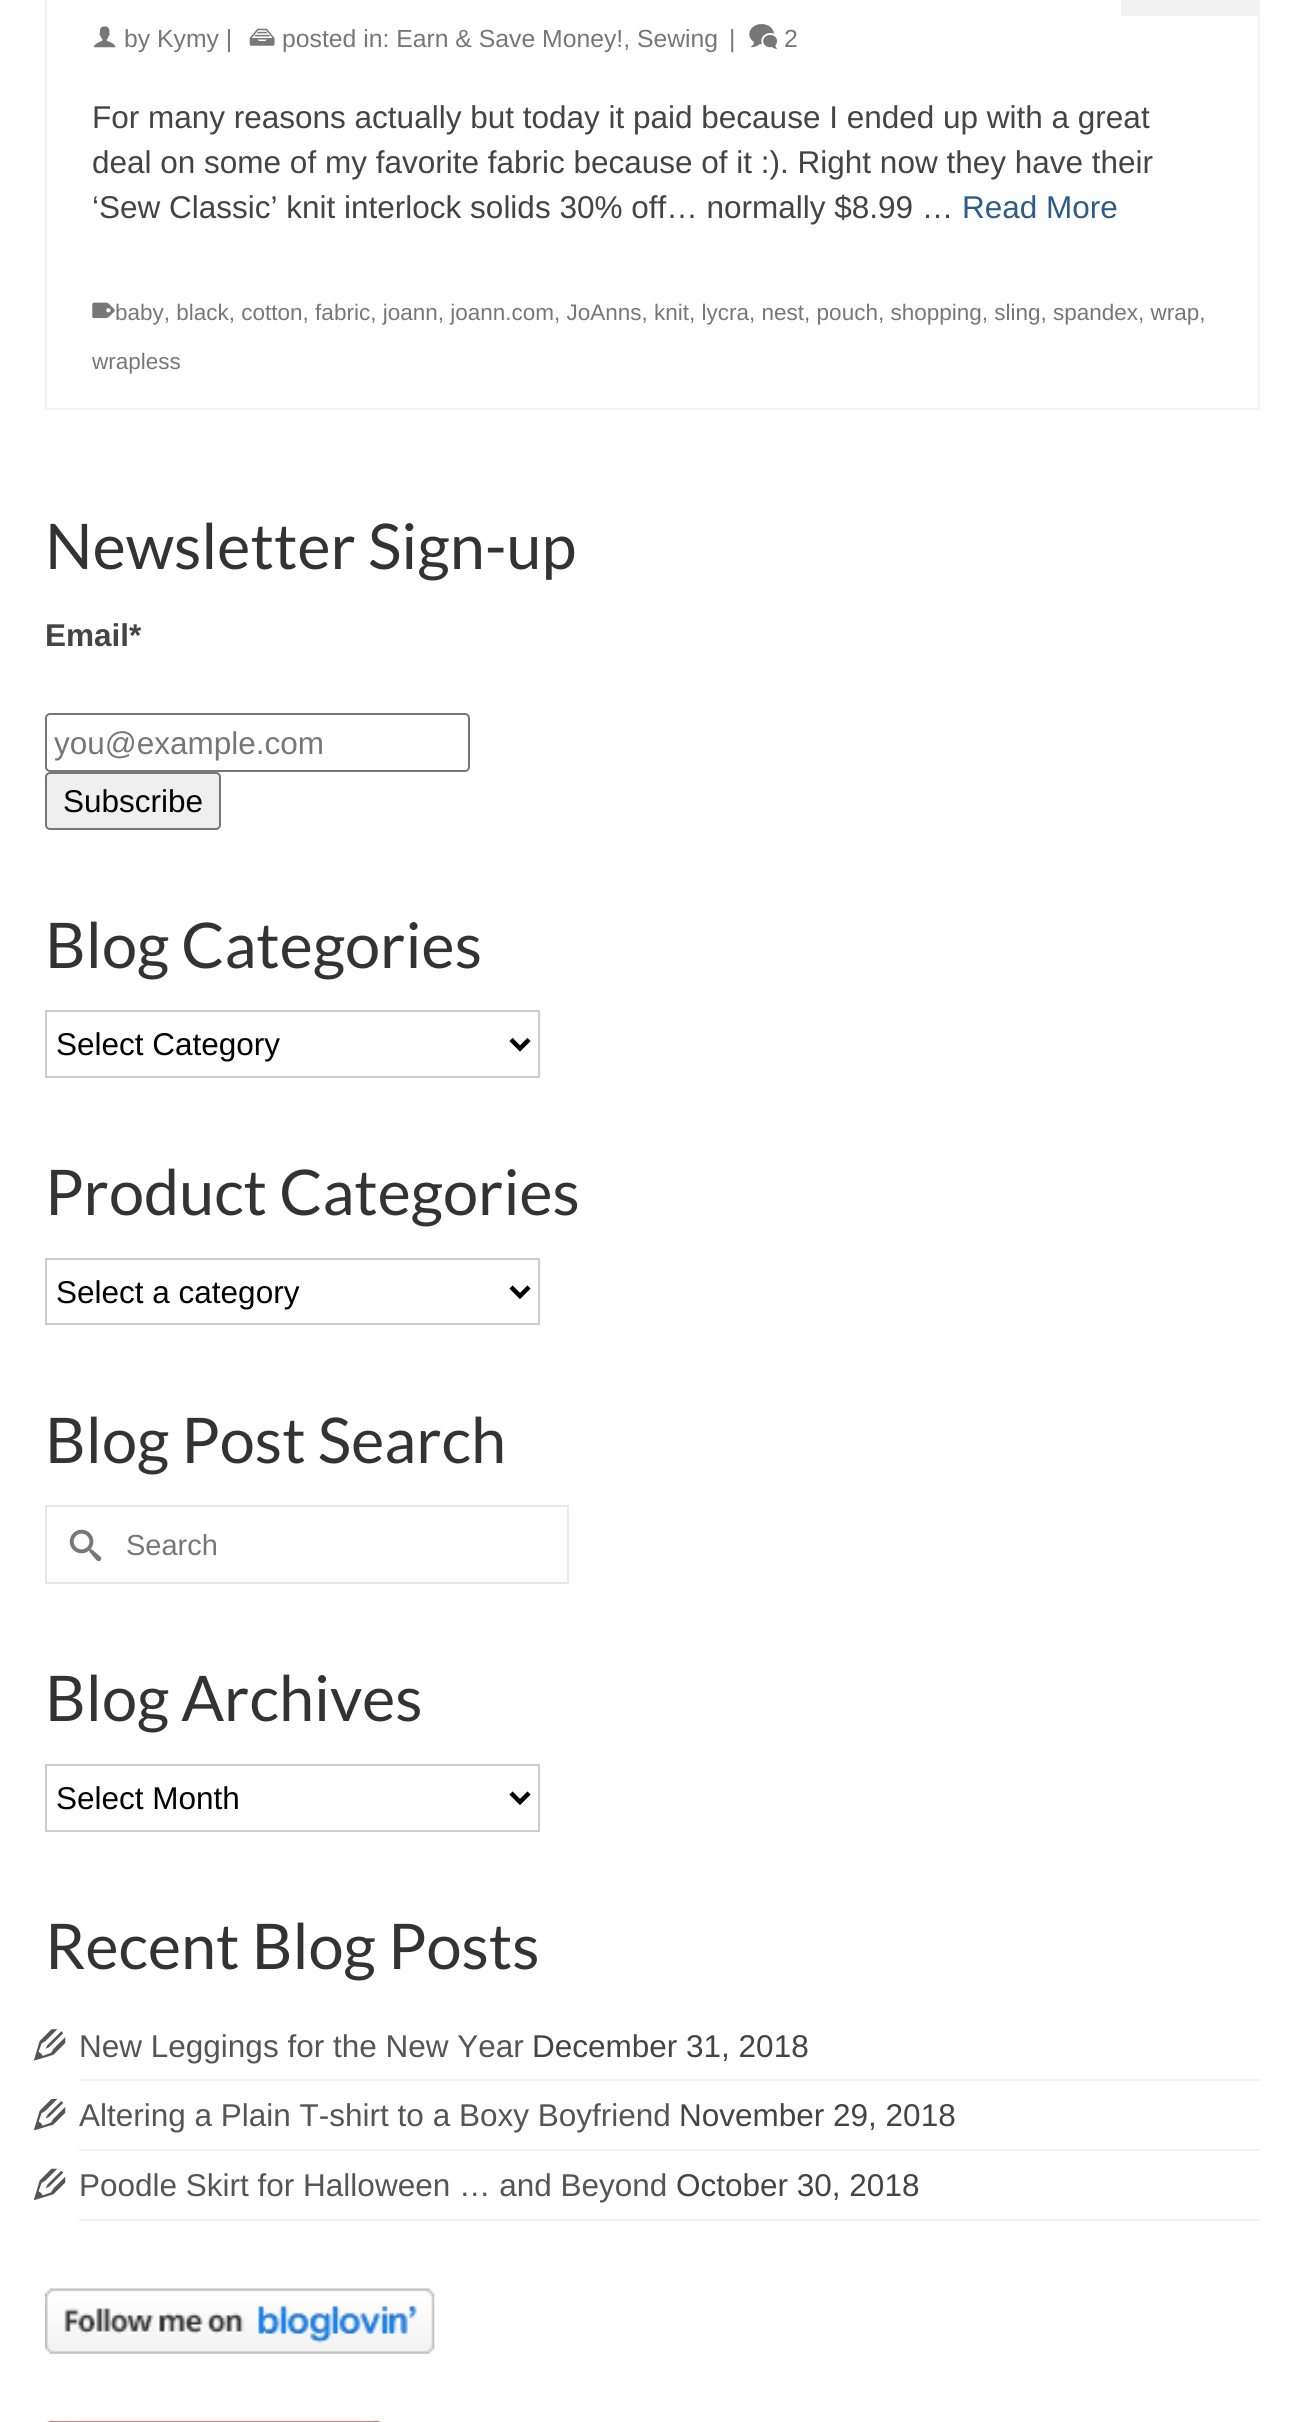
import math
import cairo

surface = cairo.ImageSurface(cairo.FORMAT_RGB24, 1303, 2422)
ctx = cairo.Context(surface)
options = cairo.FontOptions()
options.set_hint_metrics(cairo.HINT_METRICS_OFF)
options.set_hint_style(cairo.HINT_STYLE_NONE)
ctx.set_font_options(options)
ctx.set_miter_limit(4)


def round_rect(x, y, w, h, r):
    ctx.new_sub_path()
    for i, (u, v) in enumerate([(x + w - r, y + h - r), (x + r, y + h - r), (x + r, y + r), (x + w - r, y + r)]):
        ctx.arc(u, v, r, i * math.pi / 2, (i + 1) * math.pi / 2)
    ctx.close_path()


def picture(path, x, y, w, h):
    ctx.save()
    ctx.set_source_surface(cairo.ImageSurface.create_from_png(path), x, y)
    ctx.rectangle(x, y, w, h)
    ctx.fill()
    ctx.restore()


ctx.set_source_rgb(1, 1, 1)
ctx.paint()
ctx.rectangle(46, -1, 1213, 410)
ctx.set_source_rgb(0.949, 0.949, 0.949)
ctx.stroke()
ctx.rectangle(1121, 0, 137, 16)
ctx.fill()
picture("img1.png", 93, 26, 23, 22)
ctx.select_font_face("Liberation Sans")
ctx.set_font_size(24.75)
ctx.set_source_rgb(0.467, 0.467, 0.467)
ctx.move_to(124, 47)
ctx.show_text("by Kymy |")
picture("img2.png", 249, 28, 26, 18)
ctx.move_to(282, 47)
ctx.show_text("posted in: Earn & Save Money!, Sewing")
ctx.move_to(729, 47)
ctx.show_text("|")
picture("img3.png", 749, 24, 29, 25)
ctx.move_to(784, 47)
ctx.show_text("2")
ctx.set_font_size(31.5)
ctx.set_source_rgb(0.267, 0.267, 0.267)
ctx.move_to(92, 128)
ctx.show_text("For many reasons actually but today it paid because I ended up with a great")
ctx.move_to(92, 173)
ctx.show_text("deal on some of my favorite fabric because of it :). Right now they have their")
ctx.move_to(92, 218)
ctx.show_text("‘Sew Classic’ knit interlock solids 30% off… normally $8.99 …")
ctx.set_source_rgb(0.176, 0.361, 0.533)
ctx.move_to(962, 218)
ctx.show_text("Read More")
picture("img4.png", 92, 302, 23, 17)
ctx.set_font_size(22.5)
ctx.set_source_rgb(0.467, 0.467, 0.467)
ctx.move_to(115, 320)
ctx.show_text("baby, black, cotton, fabric, joann, joann.com, JoAnns, knit, lycra, nest, pouch, shopping, sling, spandex, wrap,")
ctx.move_to(92, 369)
ctx.show_text("wrapless")
ctx.select_font_face("Lato")
ctx.set_font_size(63)
ctx.set_source_rgb(0.2, 0.2, 0.2)
ctx.move_to(45, 569)
ctx.show_text("Newsletter Sign-up")
ctx.select_font_face("Liberation Sans", cairo.FONT_SLANT_NORMAL, cairo.FONT_WEIGHT_BOLD)
ctx.set_font_size(31.5)
ctx.set_source_rgb(0.267, 0.267, 0.267)
ctx.move_to(45, 646)
ctx.show_text("Email*")
round_rect(46, 714, 423, 57, 4)
ctx.set_source_rgb(0.463, 0.463, 0.463)
ctx.stroke()
ctx.select_font_face("Liberation Sans")
ctx.set_source_rgb(0.467, 0.467, 0.467)
ctx.move_to(54, 754)
ctx.show_text("you@example.com")
ctx.set_source_rgb(0.937, 0.937, 0.937)
round_rect(46, 773, 174, 56, 4)
ctx.fill_preserve()
ctx.set_source_rgb(0.463, 0.463, 0.463)
ctx.stroke()
ctx.set_source_rgb(0, 0, 0)
ctx.move_to(63, 812)
ctx.show_text("Subscribe")
ctx.select_font_face("Lato")
ctx.set_font_size(63)
ctx.set_source_rgb(0.2, 0.2, 0.2)
ctx.move_to(45, 968)
ctx.show_text("Blog Categories")
ctx.rectangle(46, 1011, 493, 66)
ctx.set_source_rgb(0.8, 0.8, 0.8)
ctx.stroke()
ctx.new_path()
ctx.move_to(511, 1039.5)
ctx.line_to(520, 1048.5)
ctx.line_to(529, 1039.5)
ctx.set_source_rgb(0, 0, 0)
ctx.set_line_width(4.5)
ctx.stroke()
ctx.select_font_face("Liberation Sans")
ctx.set_font_size(31.5)
ctx.move_to(56, 1055)
ctx.show_text("Select Category")
ctx.select_font_face("Lato")
ctx.set_font_size(63)
ctx.set_source_rgb(0.2, 0.2, 0.2)
ctx.move_to(45, 1215)
ctx.show_text("Product Categories")
ctx.rectangle(46, 1259, 493, 65)
ctx.set_source_rgb(0.8, 0.8, 0.8)
ctx.set_line_width(2)
ctx.stroke()
ctx.new_path()
ctx.move_to(511, 1287)
ctx.line_to(520, 1296)
ctx.line_to(529, 1287)
ctx.set_source_rgb(0, 0, 0)
ctx.set_line_width(4.5)
ctx.stroke()
ctx.select_font_face("Liberation Sans")
ctx.set_font_size(31.5)
ctx.move_to(56, 1303)
ctx.show_text("Select a category")
ctx.select_font_face("Lato")
ctx.set_font_size(63)
ctx.set_source_rgb(0.2, 0.2, 0.2)
ctx.move_to(45, 1463)
ctx.show_text("Blog Post Search")
ctx.rectangle(46, 1506, 522, 77)
ctx.set_source_rgb(0.906, 0.906, 0.906)
ctx.set_line_width(2)
ctx.stroke()
picture("img5.png", 69, 1529, 33, 33)
ctx.select_font_face("Liberation Sans")
ctx.set_font_size(29)
ctx.set_source_rgb(0.467, 0.467, 0.467)
ctx.move_to(126, 1555)
ctx.show_text("Search")
ctx.select_font_face("Lato")
ctx.set_font_size(63)
ctx.set_source_rgb(0.2, 0.2, 0.2)
ctx.move_to(45, 1721)
ctx.show_text("Blog Archives")
ctx.rectangle(46, 1765, 493, 66)
ctx.set_source_rgb(0.8, 0.8, 0.8)
ctx.stroke()
ctx.new_path()
ctx.move_to(511, 1793)
ctx.line_to(520, 1802)
ctx.line_to(529, 1793)
ctx.set_source_rgb(0, 0, 0)
ctx.set_line_width(4.5)
ctx.stroke()
ctx.select_font_face("Liberation Sans")
ctx.set_font_size(31.5)
ctx.move_to(56, 1809)
ctx.show_text("Select Month")
ctx.select_font_face("Lato")
ctx.set_font_size(63)
ctx.set_source_rgb(0.2, 0.2, 0.2)
ctx.move_to(45, 1969)
ctx.show_text("Recent Blog Posts")
ctx.set_source_rgb(0.949, 0.949, 0.949)
ctx.rectangle(79, 2079, 1181, 2)
ctx.fill()
picture("img6.png", 33, 2029, 33, 32)
ctx.select_font_face("Liberation Sans")
ctx.set_font_size(31.5)
ctx.set_source_rgb(0.333, 0.333, 0.333)
ctx.move_to(79, 2057)
ctx.show_text("New Leggings for the New Year")
ctx.set_source_rgb(0.267, 0.267, 0.267)
ctx.move_to(532, 2057)
ctx.show_text("December 31, 2018")
ctx.set_source_rgb(0.949, 0.949, 0.949)
ctx.rectangle(79, 2149, 1181, 2)
ctx.fill()
picture("img7.png", 33, 2099, 33, 32)
ctx.set_source_rgb(0.333, 0.333, 0.333)
ctx.move_to(79, 2126)
ctx.show_text("Altering a Plain T-shirt to a Boxy Boyfriend")
ctx.set_source_rgb(0.267, 0.267, 0.267)
ctx.move_to(679, 2126)
ctx.show_text("November 29, 2018")
ctx.set_source_rgb(0.949, 0.949, 0.949)
ctx.rectangle(79, 2219, 1181, 2)
ctx.fill()
picture("img8.png", 33, 2168, 33, 33)
ctx.set_source_rgb(0.333, 0.333, 0.333)
ctx.move_to(79, 2196)
ctx.show_text("Poodle Skirt for Halloween … and Beyond")
ctx.set_source_rgb(0.267, 0.267, 0.267)
ctx.move_to(676, 2196)
ctx.show_text("October 30, 2018")
picture("img9.png", 45, 2288, 390, 66)
picture("img10.png", 45, 2421, 338, 1)
surface.write_to_png("page.png")
